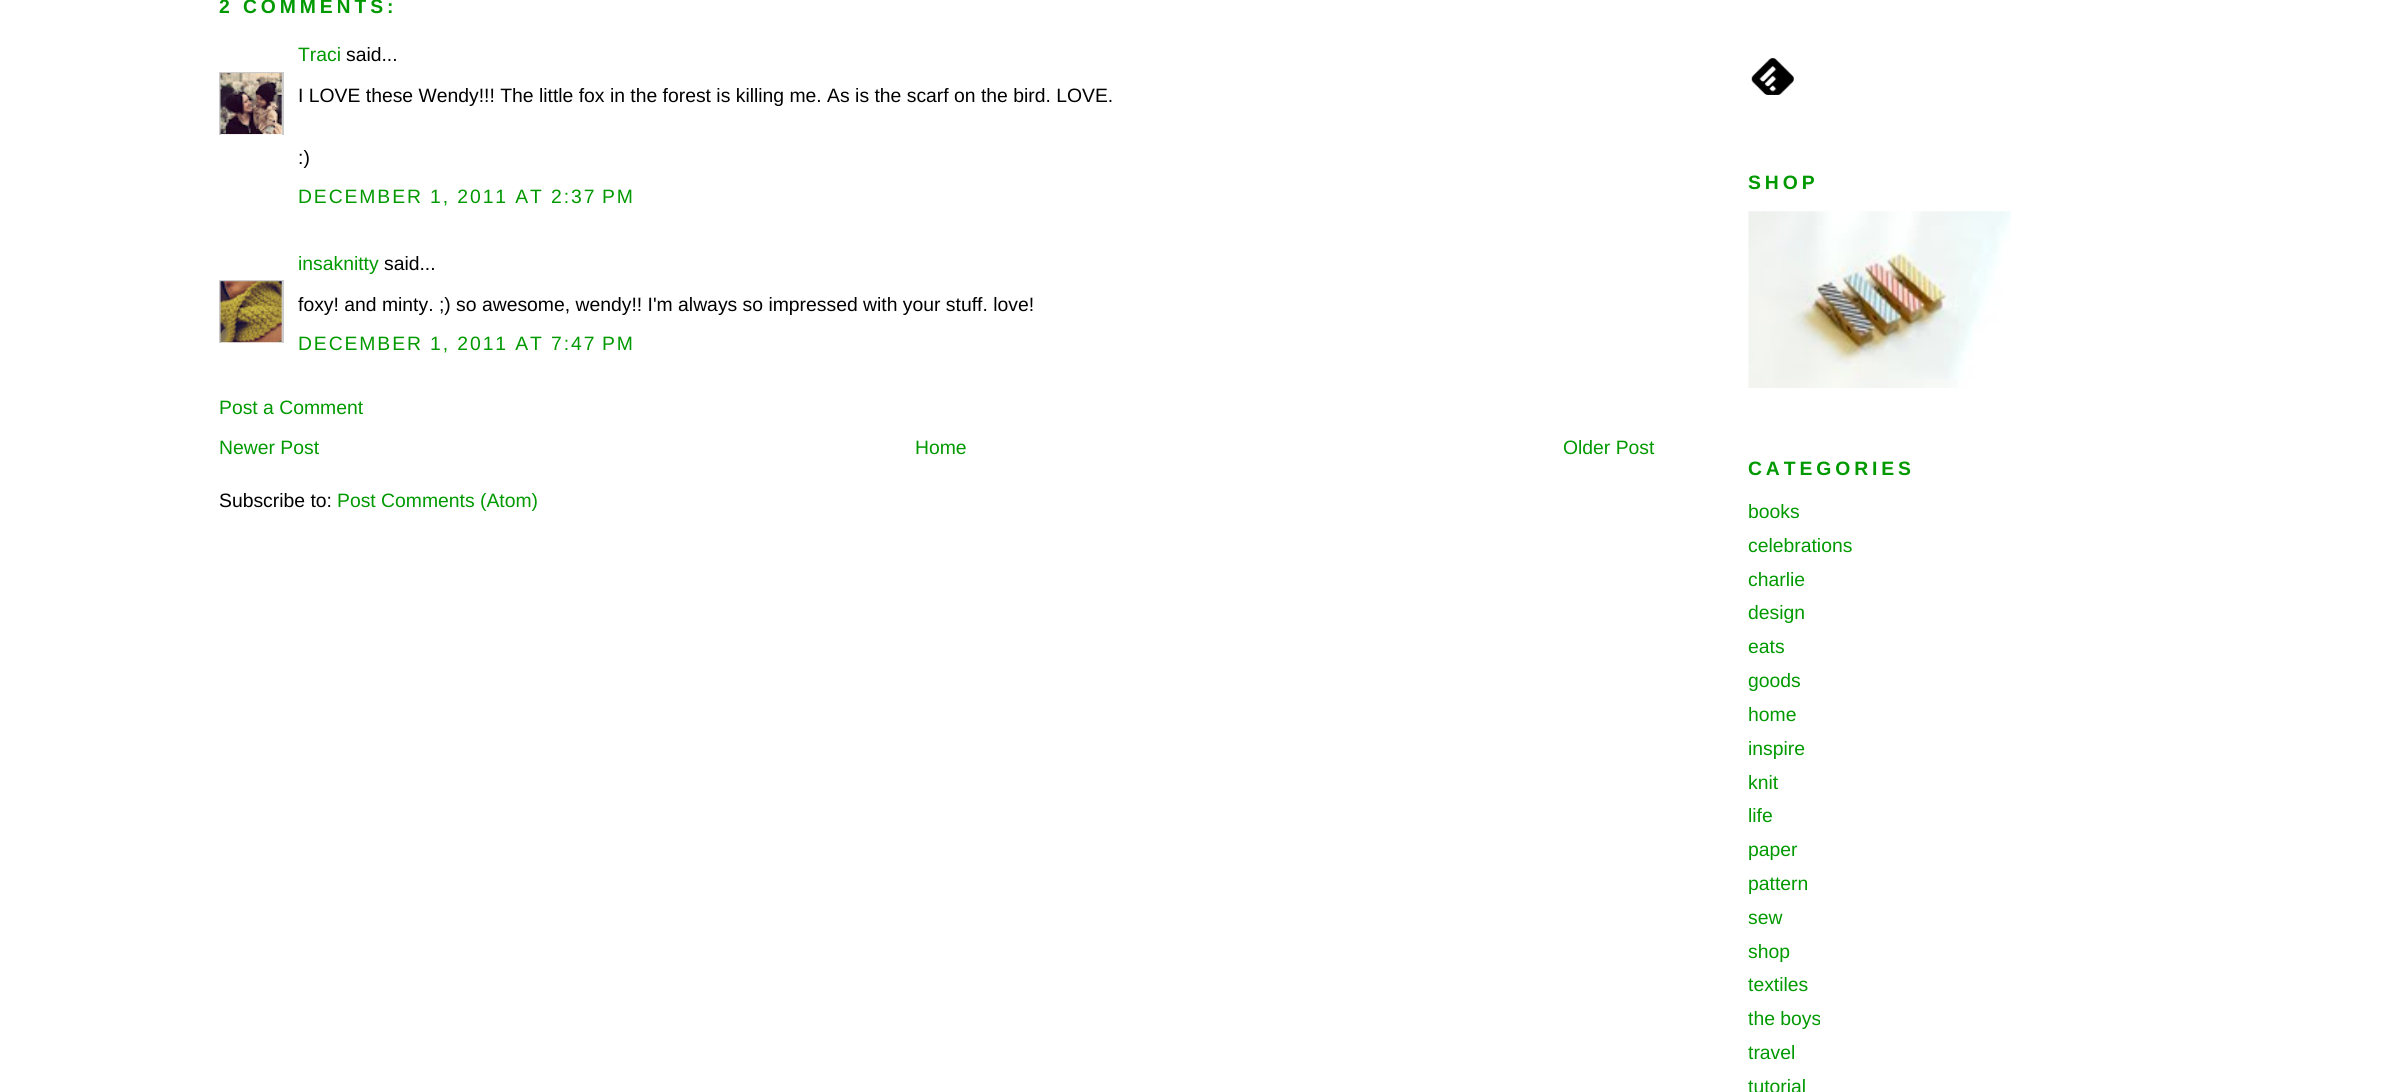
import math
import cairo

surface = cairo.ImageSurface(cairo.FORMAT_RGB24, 2381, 1092)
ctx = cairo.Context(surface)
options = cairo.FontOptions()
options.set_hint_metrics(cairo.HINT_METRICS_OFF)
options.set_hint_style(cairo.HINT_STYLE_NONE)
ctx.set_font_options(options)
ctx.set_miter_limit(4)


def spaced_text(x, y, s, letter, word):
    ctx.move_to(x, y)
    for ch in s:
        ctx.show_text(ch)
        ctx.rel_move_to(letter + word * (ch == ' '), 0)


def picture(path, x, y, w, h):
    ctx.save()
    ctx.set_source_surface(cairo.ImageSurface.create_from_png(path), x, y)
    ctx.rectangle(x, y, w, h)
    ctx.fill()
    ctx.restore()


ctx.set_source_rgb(1, 1, 1)
ctx.paint()
ctx.select_font_face("Liberation Sans", cairo.FONT_SLANT_NORMAL, cairo.FONT_WEIGHT_BOLD)
ctx.set_font_size(19.35)
ctx.set_source_rgb(0, 0.6, 0)
spaced_text(219, 13, "2 COMMENTS:", 3.9, 0)
ctx.select_font_face("Liberation Sans")
ctx.move_to(298, 61)
ctx.show_text("Traci")
ctx.set_source_rgb(0, 0, 0)
ctx.move_to(346, 61)
ctx.show_text("said...")
ctx.save()
ctx.rectangle(219, 72, 65, 63)
ctx.clip()
ctx.rectangle(220, 73, 63, 63)
ctx.set_source_rgb(0.8, 0.8, 0.8)
ctx.stroke()
ctx.restore()
picture("img1.png", 220, 73, 62, 62)
ctx.move_to(298, 102)
ctx.show_text("I LOVE these Wendy!!! The little fox in the forest is killing me. As is the scarf on the bird. LOVE.")
ctx.move_to(298, 164)
ctx.show_text(":)")
ctx.set_source_rgb(0, 0.6, 0)
spaced_text(298, 203, "DECEMBER 1, 2011 AT 2:37 PM", 1.9, 0)
ctx.move_to(298, 270)
ctx.show_text("insaknitty")
ctx.set_source_rgb(0, 0, 0)
ctx.move_to(384, 270)
ctx.show_text("said...")
ctx.save()
ctx.rectangle(219, 280, 65, 63)
ctx.clip()
ctx.rectangle(220, 281, 63, 63)
ctx.set_source_rgb(0.8, 0.8, 0.8)
ctx.stroke()
ctx.restore()
picture("img2.png", 220, 281, 62, 62)
ctx.move_to(298, 311)
ctx.show_text("foxy! and minty. ;) so awesome, wendy!! I'm always so impressed with your stuff. love!")
ctx.set_source_rgb(0, 0.6, 0)
spaced_text(298, 350, "DECEMBER 1, 2011 AT 7:47 PM", 1.9, 0)
ctx.move_to(219, 414)
ctx.show_text("Post a Comment")
ctx.move_to(219, 454)
ctx.show_text("Newer Post")
ctx.move_to(915, 454)
ctx.show_text("Home")
ctx.move_to(1563, 454)
ctx.show_text("Older Post")
ctx.set_source_rgb(0, 0, 0)
ctx.move_to(219, 507)
ctx.show_text("Subscribe to:")
ctx.set_source_rgb(0, 0.6, 0)
ctx.move_to(337, 507)
ctx.show_text("Post Comments (Atom)")
picture("img3.png", 1751, 58, 43, 37)
ctx.select_font_face("Liberation Sans", cairo.FONT_SLANT_NORMAL, cairo.FONT_WEIGHT_BOLD)
spaced_text(1748, 189, "SHOP", 3.9, 0)
picture("img4.png", 1748, 211, 263, 177)
spaced_text(1748, 475, "CATEGORIES", 3.9, 0)
ctx.select_font_face("Liberation Sans")
ctx.move_to(1748, 518)
ctx.show_text("books")
ctx.move_to(1748, 552)
ctx.show_text("celebrations")
ctx.move_to(1748, 586)
ctx.show_text("charlie")
ctx.move_to(1748, 619)
ctx.show_text("design")
ctx.move_to(1748, 653)
ctx.show_text("eats")
ctx.move_to(1748, 687)
ctx.show_text("goods")
ctx.move_to(1748, 721)
ctx.show_text("home")
ctx.move_to(1748, 755)
ctx.show_text("inspire")
ctx.move_to(1748, 789)
ctx.show_text("knit")
ctx.move_to(1748, 822)
ctx.show_text("life")
ctx.move_to(1748, 856)
ctx.show_text("paper")
ctx.move_to(1748, 890)
ctx.show_text("pattern")
ctx.move_to(1748, 924)
ctx.show_text("sew")
ctx.move_to(1748, 958)
ctx.show_text("shop")
ctx.move_to(1748, 991)
ctx.show_text("textiles")
ctx.move_to(1748, 1025)
ctx.show_text("the boys")
ctx.move_to(1748, 1059)
ctx.show_text("travel")
ctx.move_to(1748, 1093)
ctx.show_text("tutorial")
surface.write_to_png("page.png")
